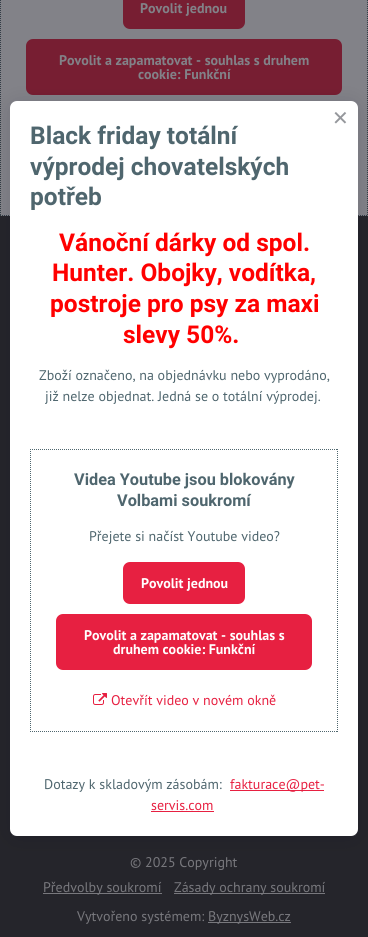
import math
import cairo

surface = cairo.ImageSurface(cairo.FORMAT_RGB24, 368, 937)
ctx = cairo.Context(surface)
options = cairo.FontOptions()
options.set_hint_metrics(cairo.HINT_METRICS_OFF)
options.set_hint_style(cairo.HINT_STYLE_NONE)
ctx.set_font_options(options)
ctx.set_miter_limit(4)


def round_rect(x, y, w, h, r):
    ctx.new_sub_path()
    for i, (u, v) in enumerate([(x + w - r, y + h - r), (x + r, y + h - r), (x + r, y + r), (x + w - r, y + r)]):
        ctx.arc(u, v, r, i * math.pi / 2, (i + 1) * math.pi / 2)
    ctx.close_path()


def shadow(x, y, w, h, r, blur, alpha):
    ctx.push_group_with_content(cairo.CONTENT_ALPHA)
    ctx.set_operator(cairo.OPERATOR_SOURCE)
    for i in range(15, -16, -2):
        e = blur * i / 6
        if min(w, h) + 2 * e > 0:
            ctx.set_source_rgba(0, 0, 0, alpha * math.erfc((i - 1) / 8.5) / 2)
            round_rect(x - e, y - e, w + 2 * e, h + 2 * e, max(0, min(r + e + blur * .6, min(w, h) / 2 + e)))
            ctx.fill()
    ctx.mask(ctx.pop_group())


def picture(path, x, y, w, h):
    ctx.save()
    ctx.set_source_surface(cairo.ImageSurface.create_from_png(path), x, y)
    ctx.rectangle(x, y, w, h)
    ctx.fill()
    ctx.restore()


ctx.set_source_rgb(0.51, 0.51, 0.533)
ctx.paint()
ctx.new_path()
ctx.move_to(367.5, -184)
ctx.line_to(367.5, 216)
ctx.set_source_rgb(0.2, 0.239, 0.275)
ctx.set_line_width(1)
ctx.set_dash([1, 1])
ctx.stroke()
ctx.new_path()
ctx.move_to(0, 215.5)
ctx.line_to(368, 215.5)
ctx.stroke()
ctx.new_path()
ctx.move_to(0.5, -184)
ctx.line_to(0.5, 216)
ctx.stroke()
ctx.set_source_rgb(0.467, 0.118, 0.196)
round_rect(123, -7, 122, 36, 7)
ctx.fill()
ctx.select_font_face("PT Sans", cairo.FONT_SLANT_NORMAL, cairo.FONT_WEIGHT_BOLD)
ctx.set_font_size(14)
ctx.set_source_rgb(0.51, 0.51, 0.533)
ctx.move_to(140, 13)
ctx.show_text("Povolit jednou")
ctx.set_source_rgb(0.467, 0.118, 0.196)
round_rect(26, 39, 316, 56, 7)
ctx.fill()
ctx.set_source_rgb(0.51, 0.51, 0.533)
ctx.move_to(59, 65)
ctx.show_text("Povolit a zapamatovat - souhlas s druhem")
ctx.move_to(138, 79)
ctx.show_text("cookie: Funkční")
ctx.set_source_rgb(0.145, 0.145, 0.169)
ctx.rectangle(0, 216, 368, 721)
ctx.fill()
ctx.set_source_rgb(0.196, 0.196, 0.216)
ctx.rectangle(12, 835, 344, 1)
ctx.fill()
ctx.select_font_face("PT Sans")
ctx.set_source_rgb(0.471, 0.471, 0.49)
ctx.move_to(130, 867)
ctx.show_text("© 2025 Copyright")
ctx.rectangle(43, 893, 119, 1)
ctx.fill()
ctx.move_to(43, 892)
ctx.show_text("Předvolby soukromí")
ctx.rectangle(174, 893, 151, 1)
ctx.fill()
ctx.move_to(174, 892)
ctx.show_text("Zásady ochrany soukromí")
ctx.move_to(77, 921)
ctx.show_text("Vytvořeno systémem:")
ctx.rectangle(208, 922, 83, 1)
ctx.fill()
ctx.move_to(208, 921)
ctx.show_text("ByznysWeb.cz")
ctx.set_source_rgb(0, 0, 0.078)
shadow(12, 105, 344, 731, 5, 10.5, 0.15)
ctx.set_source_rgb(1, 1, 1)
round_rect(10, 101, 348, 735, 7)
ctx.fill()
ctx.select_font_face("DejaVu Sans")
ctx.set_font_size(20)
ctx.set_source_rgb(0.584, 0.592, 0.612)
ctx.move_to(332, 125)
ctx.show_text("✕")
ctx.select_font_face("Roboto", cairo.FONT_SLANT_NORMAL, cairo.FONT_WEIGHT_BOLD)
ctx.set_font_size(24.5)
ctx.set_source_rgb(0.31, 0.4, 0.431)
ctx.move_to(30, 144)
ctx.show_text("Black friday totální")
ctx.move_to(30, 175)
ctx.show_text("výprodej chovatelských")
ctx.move_to(30, 205)
ctx.show_text("potřeb")
ctx.set_source_rgb(1, 0, 0)
ctx.move_to(59, 251)
ctx.show_text("Vánoční dárky od spol.")
ctx.move_to(52, 281)
ctx.show_text("Hunter. Obojky, vodítka,")
ctx.move_to(50, 312)
ctx.show_text("postroje pro psy za maxi")
ctx.move_to(123, 343)
ctx.show_text("slevy 50%.")
ctx.select_font_face("PT Sans")
ctx.set_font_size(14)
ctx.set_source_rgb(0.31, 0.4, 0.431)
ctx.move_to(39, 380)
ctx.show_text("Zboží označeno, na objednávku nebo vyprodáno,")
ctx.move_to(45, 401)
ctx.show_text("již nelze objednat. Jedná se o totální výprodej.")
ctx.new_path()
ctx.move_to(30, 449.5)
ctx.line_to(338, 449.5)
ctx.stroke()
ctx.new_path()
ctx.move_to(337.5, 449)
ctx.line_to(337.5, 732)
ctx.stroke()
ctx.new_path()
ctx.move_to(30, 731.5)
ctx.line_to(338, 731.5)
ctx.stroke()
ctx.new_path()
ctx.move_to(30.5, 449)
ctx.line_to(30.5, 732)
ctx.stroke()
ctx.select_font_face("Roboto", cairo.FONT_SLANT_NORMAL, cairo.FONT_WEIGHT_BOLD)
ctx.set_font_size(16.3)
ctx.move_to(74, 485)
ctx.show_text("Videa Youtube jsou blokovány")
ctx.move_to(117, 506)
ctx.show_text("Volbami soukromí")
ctx.select_font_face("PT Sans")
ctx.set_font_size(14)
ctx.move_to(89, 541)
ctx.show_text("Přejete si načíst Youtube video?")
ctx.set_source_rgb(0.906, 0.125, 0.255)
round_rect(123, 562, 122, 42, 7)
ctx.fill()
ctx.select_font_face("PT Sans", cairo.FONT_SLANT_NORMAL, cairo.FONT_WEIGHT_BOLD)
ctx.set_source_rgb(1, 1, 1)
ctx.move_to(141, 588)
ctx.show_text("Povolit jednou")
ctx.set_source_rgb(0.906, 0.125, 0.255)
round_rect(56, 614, 256, 56, 7)
ctx.fill()
ctx.set_source_rgb(1, 1, 1)
ctx.move_to(84, 640)
ctx.show_text("Povolit a zapamatovat - souhlas s")
ctx.move_to(113, 654)
ctx.show_text("druhem cookie: Funkční")
picture("img1.png", 93, 693, 14, 12)
ctx.select_font_face("PT Sans")
ctx.set_source_rgb(0.906, 0.125, 0.255)
ctx.move_to(111, 705)
ctx.show_text("Otevřít video v novém okně")
ctx.set_source_rgb(0.31, 0.4, 0.431)
ctx.move_to(44, 789)
ctx.show_text("Dotazy k skladovým zásobám:")
ctx.set_source_rgb(0.906, 0.125, 0.255)
ctx.rectangle(230, 790, 94, 1)
ctx.fill()
ctx.move_to(230, 789)
ctx.show_text("fakturace@pet-")
ctx.move_to(151, 810)
ctx.show_text("servis.com")
ctx.rectangle(151, 811, 63, 1)
ctx.fill()
surface.write_to_png("page.png")
